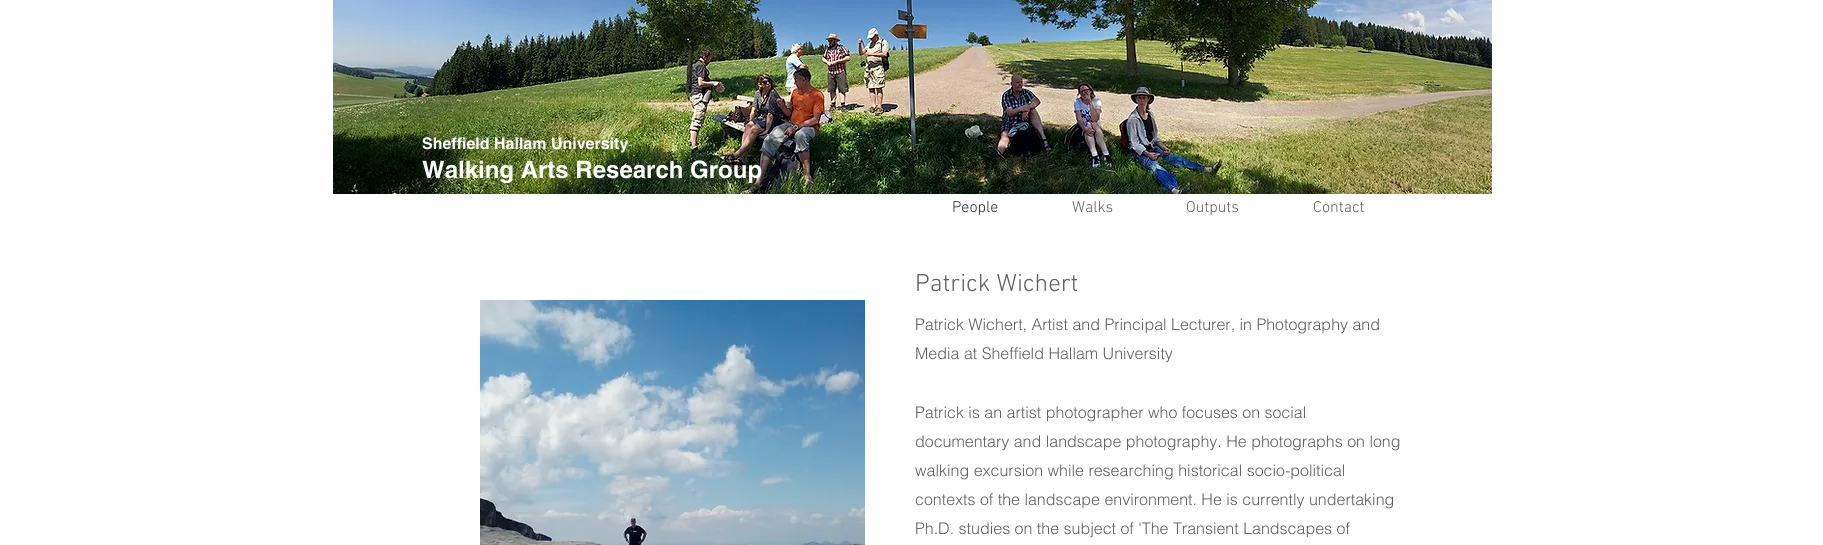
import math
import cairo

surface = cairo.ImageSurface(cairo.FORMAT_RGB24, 1823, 545)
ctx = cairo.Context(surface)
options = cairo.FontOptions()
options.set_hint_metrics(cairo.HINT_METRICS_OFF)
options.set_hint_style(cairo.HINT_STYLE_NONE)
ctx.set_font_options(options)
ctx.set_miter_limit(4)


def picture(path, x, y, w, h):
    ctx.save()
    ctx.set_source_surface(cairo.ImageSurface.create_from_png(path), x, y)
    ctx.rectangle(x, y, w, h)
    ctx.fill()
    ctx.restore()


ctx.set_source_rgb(1, 1, 1)
ctx.paint()
picture("img1.png", 333, 0, 1159, 194)
ctx.select_font_face("helvetica", cairo.FONT_SLANT_NORMAL, cairo.FONT_WEIGHT_BOLD)
ctx.set_font_size(16)
ctx.set_source_rgb(1, 1, 1)
ctx.move_to(422, 149)
ctx.show_text("Sheffield Hallam University")
ctx.set_font_size(24)
ctx.move_to(422, 178)
ctx.show_text("Walking Arts Research Group")
ctx.select_font_face("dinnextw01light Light")
ctx.set_font_size(16)
ctx.set_source_rgb(0.184, 0.18, 0.18)
ctx.move_to(952, 212)
ctx.show_text("People")
ctx.set_source_rgb(0.376, 0.369, 0.369)
ctx.move_to(1072, 212)
ctx.show_text("Walks")
ctx.move_to(1186, 212)
ctx.show_text("Outputs")
ctx.move_to(1313, 212)
ctx.show_text("Contact")
ctx.set_font_size(25)
ctx.move_to(915, 291)
ctx.show_text("Patrick Wichert")
picture("img2.png", 480, 300, 385, 245)
ctx.select_font_face("helvetica Light")
ctx.set_font_size(16)
ctx.move_to(915, 330)
ctx.show_text("Patrick Wichert, Artist and Principal Lecturer, in Photography and")
ctx.move_to(915, 359)
ctx.show_text("Media at Sheffield Hallam University")
ctx.move_to(915, 418)
ctx.show_text("Patrick is an artist photographer who focuses on social")
ctx.move_to(915, 447)
ctx.show_text("documentary and landscape photography. He photographs on long")
ctx.move_to(915, 476)
ctx.show_text("walking excursion while researching historical socio-political")
ctx.move_to(915, 505)
ctx.show_text("contexts of the landscape environment. He is currently undertaking")
ctx.move_to(915, 534)
ctx.show_text("Ph.D. studies on the subject of 'The Transient Landscapes of")
surface.write_to_png("page.png")
